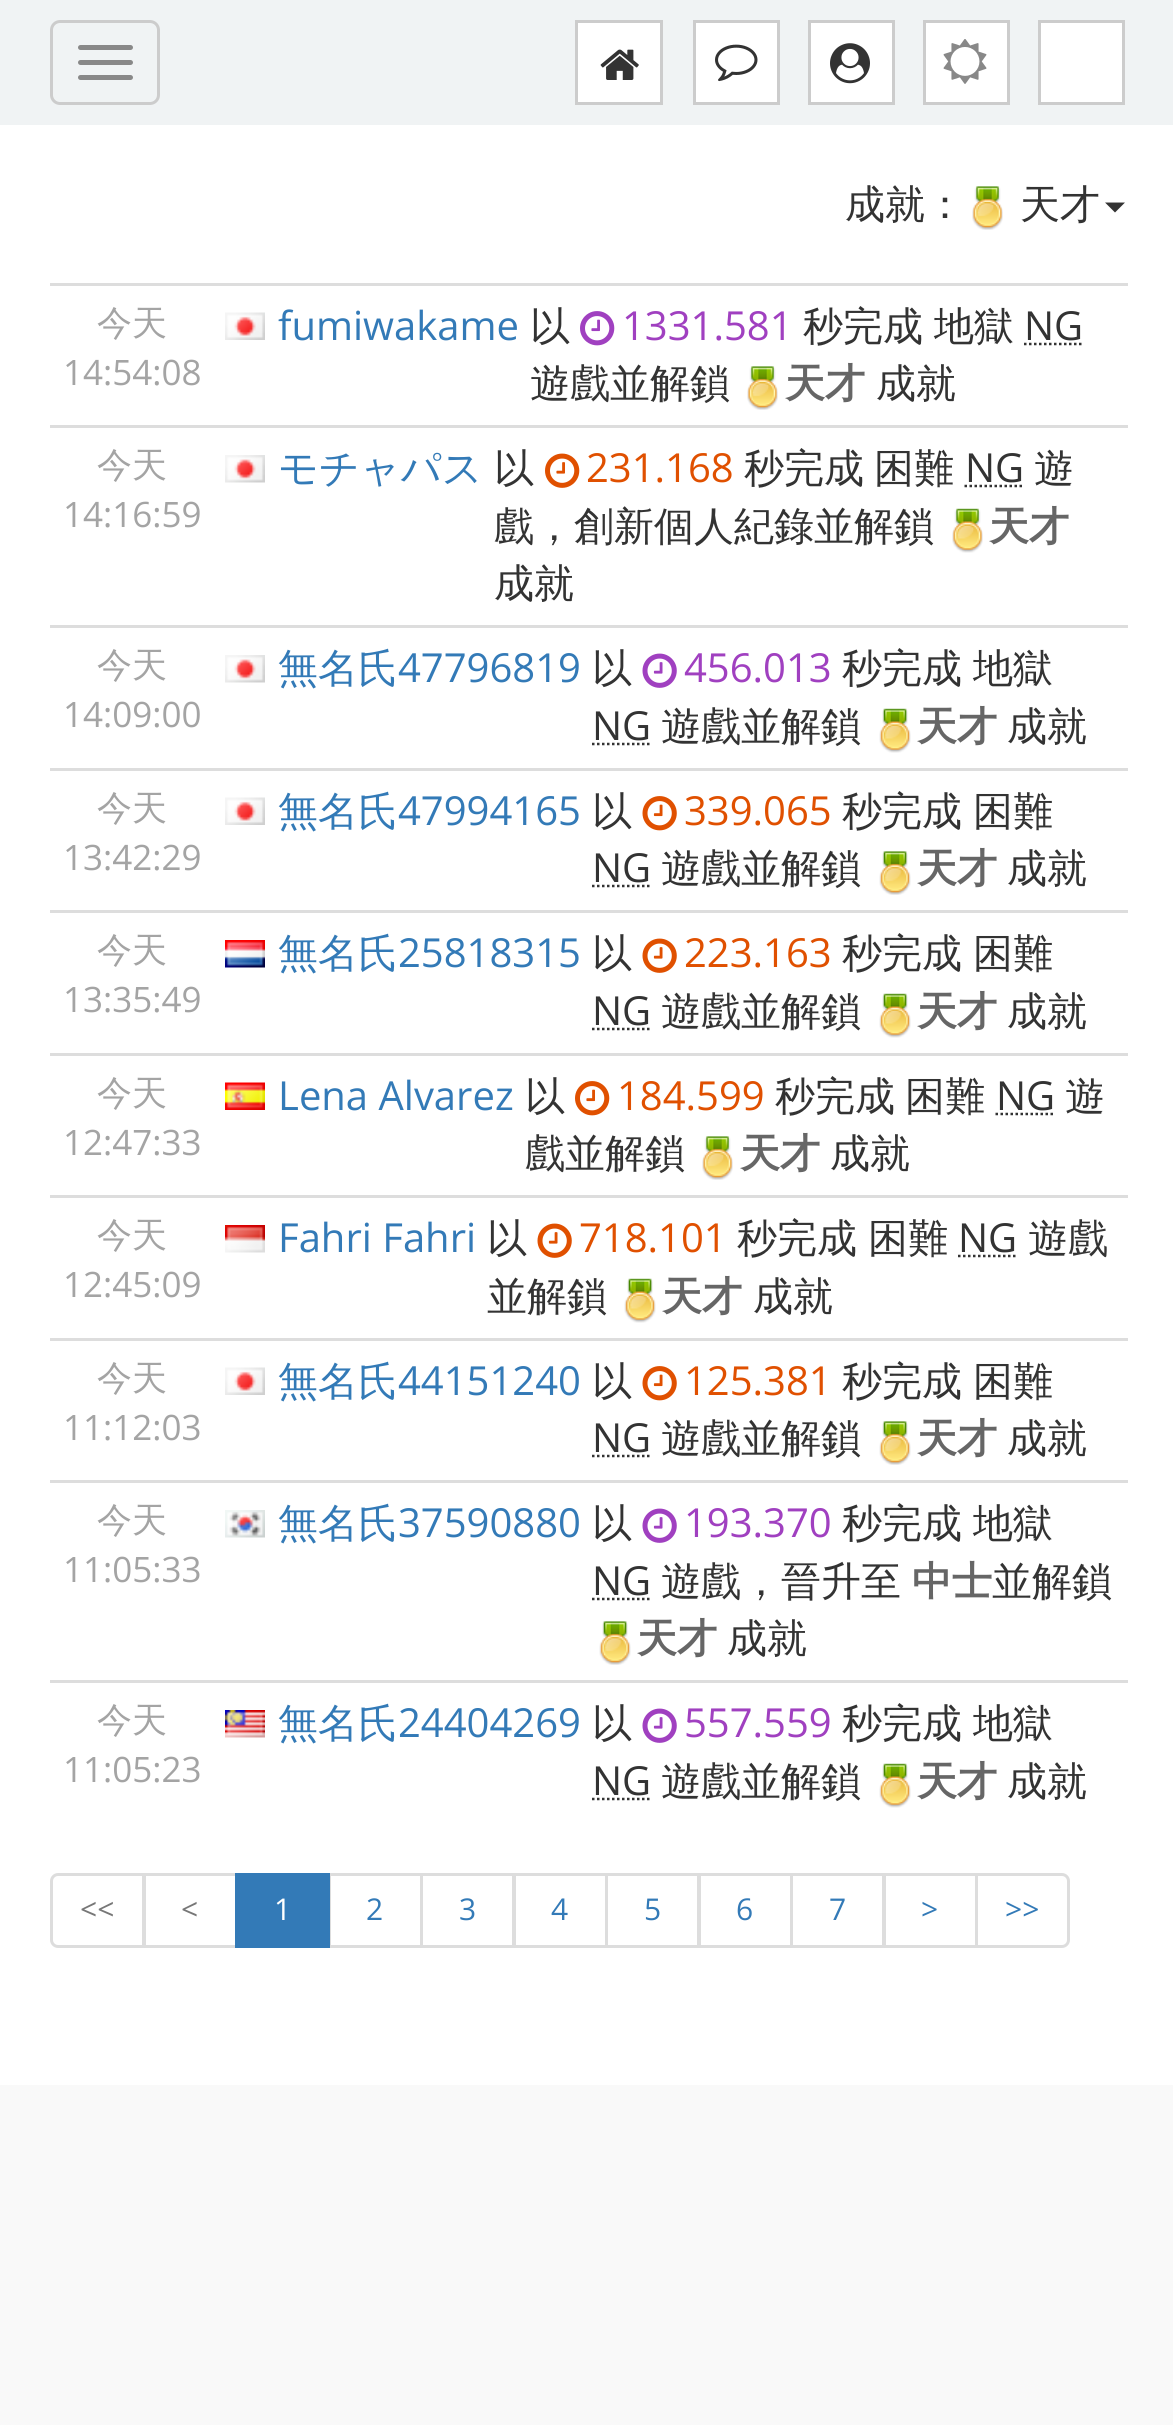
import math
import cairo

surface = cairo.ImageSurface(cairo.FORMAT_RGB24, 1173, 2425)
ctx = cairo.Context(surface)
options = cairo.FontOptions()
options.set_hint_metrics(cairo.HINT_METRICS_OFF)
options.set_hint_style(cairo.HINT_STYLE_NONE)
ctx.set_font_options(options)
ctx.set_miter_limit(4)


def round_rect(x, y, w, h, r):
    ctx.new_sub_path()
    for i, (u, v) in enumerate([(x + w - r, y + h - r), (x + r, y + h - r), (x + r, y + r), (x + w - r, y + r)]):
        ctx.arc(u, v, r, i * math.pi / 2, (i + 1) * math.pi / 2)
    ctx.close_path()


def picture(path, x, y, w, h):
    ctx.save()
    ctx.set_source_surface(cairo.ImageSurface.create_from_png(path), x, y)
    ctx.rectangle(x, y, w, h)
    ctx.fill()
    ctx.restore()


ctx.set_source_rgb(0.976, 0.976, 0.976)
ctx.paint()
ctx.set_source_rgb(0.941, 0.953, 0.957)
ctx.rectangle(0, 0, 1173, 125)
ctx.fill()
round_rect(51.5, 21.5, 107, 82, 8.5)
ctx.set_source_rgb(0.8, 0.8, 0.8)
ctx.set_line_width(3)
ctx.stroke()
ctx.set_source_rgb(0.533, 0.533, 0.533)
round_rect(78, 45, 55, 5, 2.5)
ctx.fill()
round_rect(78, 60, 55, 5, 2.5)
ctx.fill()
round_rect(78, 75, 55, 5, 2.5)
ctx.fill()
ctx.set_source_rgb(1, 1, 1)
ctx.rectangle(576.5, 21.5, 85, 82)
ctx.fill_preserve()
ctx.set_source_rgb(0.8, 0.8, 0.8)
ctx.stroke()
picture("img1.png", 600, 49, 39, 31)
ctx.set_source_rgb(1, 1, 1)
ctx.rectangle(694.5, 21.5, 84, 82)
ctx.fill_preserve()
ctx.set_source_rgb(0.8, 0.8, 0.8)
ctx.stroke()
picture("img2.png", 715, 44, 43, 38)
ctx.set_source_rgb(1, 1, 1)
ctx.rectangle(809.5, 21.5, 84, 82)
ctx.fill_preserve()
ctx.set_source_rgb(0.8, 0.8, 0.8)
ctx.stroke()
picture("img3.png", 830, 43, 40, 41)
ctx.set_source_rgb(1, 1, 1)
ctx.rectangle(924.5, 21.5, 84, 82)
ctx.fill_preserve()
ctx.set_source_rgb(0.8, 0.8, 0.8)
ctx.stroke()
picture("img4.png", 943, 39, 44, 45)
ctx.set_source_rgb(1, 1, 1)
ctx.rectangle(1039.5, 21.5, 84, 82)
ctx.fill_preserve()
ctx.set_source_rgb(0.8, 0.8, 0.8)
ctx.stroke()
ctx.set_source_rgb(1, 1, 1)
ctx.rectangle(0, 125, 1173, 1960)
ctx.fill()
ctx.select_font_face("WenQuanYi Zen Hei Medium")
ctx.set_font_size(40)
ctx.set_source_rgb(0.2, 0.2, 0.2)
ctx.move_to(845, 218)
ctx.show_text("成就：")
picture("img5.png", 972, 186, 31, 44)
ctx.move_to(1020, 218)
ctx.show_text("天才")
ctx.new_path()
ctx.move_to(1105, 202.5)
ctx.line_to(1125, 202.5)
ctx.line_to(1115, 212.5)
ctx.close_path()
ctx.fill()
ctx.set_font_size(35)
ctx.set_source_rgb(0.643, 0.643, 0.643)
ctx.move_to(97, 335)
ctx.show_text("今天")
ctx.select_font_face("Open Sans")
ctx.move_to(63, 385)
ctx.show_text("14:54:08")
ctx.set_source_rgb(0.867, 0.867, 0.867)
ctx.rectangle(50, 283, 1078, 3)
ctx.fill()
picture("img6.png", 225, 312, 40, 28)
ctx.set_font_size(40)
ctx.set_source_rgb(0.2, 0.478, 0.718)
ctx.move_to(278, 340)
ctx.show_text("fumiwakame")
ctx.select_font_face("WenQuanYi Zen Hei Medium")
ctx.set_source_rgb(0.2, 0.2, 0.2)
ctx.move_to(530, 340)
ctx.show_text("以")
picture("img7.png", 580, 311, 35, 35)
ctx.select_font_face("Open Sans")
ctx.set_source_rgb(0.627, 0.251, 0.753)
ctx.move_to(622, 340)
ctx.show_text("1331.581")
ctx.select_font_face("WenQuanYi Zen Hei Medium")
ctx.set_source_rgb(0.2, 0.2, 0.2)
ctx.move_to(803, 340)
ctx.show_text("秒完成")
ctx.move_to(934, 340)
ctx.show_text("地獄")
ctx.select_font_face("Open Sans")
ctx.move_to(1024, 340)
ctx.show_text("NG")
ctx.new_path()
ctx.move_to(1024, 344)
ctx.line_to(1083, 344)
ctx.set_line_width(2.5)
ctx.set_dash([2.5, 2.5])
ctx.stroke()
ctx.select_font_face("WenQuanYi Zen Hei Medium")
ctx.move_to(530, 397)
ctx.show_text("遊戲並解鎖")
picture("img5.png", 747, 366, 31, 44)
ctx.select_font_face("WenQuanYi Zen Hei", cairo.FONT_SLANT_NORMAL, cairo.FONT_WEIGHT_BOLD)
ctx.set_source_rgb(0.4, 0.4, 0.4)
ctx.move_to(785, 397)
ctx.show_text("天才")
ctx.select_font_face("WenQuanYi Zen Hei Medium")
ctx.set_source_rgb(0.2, 0.2, 0.2)
ctx.move_to(876, 397)
ctx.show_text("成就")
ctx.set_font_size(35)
ctx.set_source_rgb(0.643, 0.643, 0.643)
ctx.move_to(97, 477)
ctx.show_text("今天")
ctx.select_font_face("Open Sans")
ctx.move_to(63, 527)
ctx.show_text("14:16:59")
ctx.set_source_rgb(0.867, 0.867, 0.867)
ctx.rectangle(50, 425, 1078, 3)
ctx.fill()
picture("img8.png", 225, 455, 40, 28)
ctx.select_font_face("WenQuanYi Zen Hei Medium")
ctx.set_font_size(40)
ctx.set_source_rgb(0.2, 0.478, 0.718)
ctx.move_to(278, 482)
ctx.show_text("モチャパス")
ctx.set_source_rgb(0.2, 0.2, 0.2)
ctx.move_to(494, 482)
ctx.show_text("以")
picture("img9.png", 545, 453, 35, 35)
ctx.select_font_face("Open Sans")
ctx.set_source_rgb(0.878, 0.314, 0)
ctx.move_to(586, 482)
ctx.show_text("231.168")
ctx.select_font_face("WenQuanYi Zen Hei Medium")
ctx.set_source_rgb(0.2, 0.2, 0.2)
ctx.move_to(744, 482)
ctx.show_text("秒完成")
ctx.move_to(874, 482)
ctx.show_text("困難")
ctx.select_font_face("Open Sans")
ctx.move_to(965, 482)
ctx.show_text("NG")
ctx.new_path()
ctx.move_to(964.5, 486)
ctx.line_to(1024, 486)
ctx.stroke()
ctx.select_font_face("WenQuanYi Zen Hei Medium")
ctx.move_to(1034, 482)
ctx.show_text("遊")
ctx.move_to(494, 540)
ctx.show_text("戲，創新個人紀錄並解鎖")
picture("img10.png", 952, 508, 31, 45)
ctx.select_font_face("WenQuanYi Zen Hei", cairo.FONT_SLANT_NORMAL, cairo.FONT_WEIGHT_BOLD)
ctx.set_source_rgb(0.4, 0.4, 0.4)
ctx.move_to(989, 540)
ctx.show_text("天才")
ctx.select_font_face("WenQuanYi Zen Hei Medium")
ctx.set_source_rgb(0.2, 0.2, 0.2)
ctx.move_to(494, 597)
ctx.show_text("成就")
ctx.set_font_size(35)
ctx.set_source_rgb(0.643, 0.643, 0.643)
ctx.move_to(97, 677)
ctx.show_text("今天")
ctx.select_font_face("Open Sans")
ctx.move_to(63, 727)
ctx.show_text("14:09:00")
ctx.set_source_rgb(0.867, 0.867, 0.867)
ctx.rectangle(50, 625, 1078, 3)
ctx.fill()
picture("img8.png", 225, 655, 40, 28)
ctx.select_font_face("WenQuanYi Zen Hei Medium")
ctx.set_font_size(40)
ctx.set_source_rgb(0.2, 0.478, 0.718)
ctx.move_to(278, 682)
ctx.show_text("無名氏")
ctx.select_font_face("Open Sans")
ctx.move_to(398, 682)
ctx.show_text("47796819")
ctx.select_font_face("WenQuanYi Zen Hei Medium")
ctx.set_source_rgb(0.2, 0.2, 0.2)
ctx.move_to(592, 682)
ctx.show_text("以")
picture("img11.png", 642, 653, 35, 35)
ctx.select_font_face("Open Sans")
ctx.set_source_rgb(0.627, 0.251, 0.753)
ctx.move_to(684, 682)
ctx.show_text("456.013")
ctx.select_font_face("WenQuanYi Zen Hei Medium")
ctx.set_source_rgb(0.2, 0.2, 0.2)
ctx.move_to(842, 682)
ctx.show_text("秒完成")
ctx.move_to(973, 682)
ctx.show_text("地獄")
ctx.select_font_face("Open Sans")
ctx.move_to(592, 740)
ctx.show_text("NG")
ctx.new_path()
ctx.move_to(592, 744)
ctx.line_to(651, 744)
ctx.stroke()
ctx.select_font_face("WenQuanYi Zen Hei Medium")
ctx.move_to(661, 740)
ctx.show_text("遊戲並解鎖")
picture("img12.png", 879, 708, 32, 45)
ctx.select_font_face("WenQuanYi Zen Hei", cairo.FONT_SLANT_NORMAL, cairo.FONT_WEIGHT_BOLD)
ctx.set_source_rgb(0.4, 0.4, 0.4)
ctx.move_to(917, 740)
ctx.show_text("天才")
ctx.select_font_face("WenQuanYi Zen Hei Medium")
ctx.set_source_rgb(0.2, 0.2, 0.2)
ctx.move_to(1007, 740)
ctx.show_text("成就")
ctx.set_font_size(35)
ctx.set_source_rgb(0.643, 0.643, 0.643)
ctx.move_to(97, 820)
ctx.show_text("今天")
ctx.select_font_face("Open Sans")
ctx.move_to(63, 870)
ctx.show_text("13:42:29")
ctx.set_source_rgb(0.867, 0.867, 0.867)
ctx.rectangle(50, 768, 1078, 3)
ctx.fill()
picture("img6.png", 225, 797, 40, 28)
ctx.select_font_face("WenQuanYi Zen Hei Medium")
ctx.set_font_size(40)
ctx.set_source_rgb(0.2, 0.478, 0.718)
ctx.move_to(278, 825)
ctx.show_text("無名氏")
ctx.select_font_face("Open Sans")
ctx.move_to(398, 825)
ctx.show_text("47994165")
ctx.select_font_face("WenQuanYi Zen Hei Medium")
ctx.set_source_rgb(0.2, 0.2, 0.2)
ctx.move_to(592, 825)
ctx.show_text("以")
picture("img13.png", 642, 796, 35, 35)
ctx.select_font_face("Open Sans")
ctx.set_source_rgb(0.878, 0.314, 0)
ctx.move_to(684, 825)
ctx.show_text("339.065")
ctx.select_font_face("WenQuanYi Zen Hei Medium")
ctx.set_source_rgb(0.2, 0.2, 0.2)
ctx.move_to(842, 825)
ctx.show_text("秒完成")
ctx.move_to(973, 825)
ctx.show_text("困難")
ctx.select_font_face("Open Sans")
ctx.move_to(592, 882)
ctx.show_text("NG")
ctx.new_path()
ctx.move_to(592, 886)
ctx.line_to(651, 886)
ctx.stroke()
ctx.select_font_face("WenQuanYi Zen Hei Medium")
ctx.move_to(661, 882)
ctx.show_text("遊戲並解鎖")
picture("img14.png", 879, 851, 32, 44)
ctx.select_font_face("WenQuanYi Zen Hei", cairo.FONT_SLANT_NORMAL, cairo.FONT_WEIGHT_BOLD)
ctx.set_source_rgb(0.4, 0.4, 0.4)
ctx.move_to(917, 882)
ctx.show_text("天才")
ctx.select_font_face("WenQuanYi Zen Hei Medium")
ctx.set_source_rgb(0.2, 0.2, 0.2)
ctx.move_to(1007, 882)
ctx.show_text("成就")
ctx.set_font_size(35)
ctx.set_source_rgb(0.643, 0.643, 0.643)
ctx.move_to(97, 962)
ctx.show_text("今天")
ctx.select_font_face("Open Sans")
ctx.move_to(63, 1012)
ctx.show_text("13:35:49")
ctx.set_source_rgb(0.867, 0.867, 0.867)
ctx.rectangle(50, 910, 1078, 3)
ctx.fill()
picture("img15.png", 225, 940, 40, 28)
ctx.select_font_face("WenQuanYi Zen Hei Medium")
ctx.set_font_size(40)
ctx.set_source_rgb(0.2, 0.478, 0.718)
ctx.move_to(278, 967)
ctx.show_text("無名氏")
ctx.select_font_face("Open Sans")
ctx.move_to(398, 967)
ctx.show_text("25818315")
ctx.select_font_face("WenQuanYi Zen Hei Medium")
ctx.set_source_rgb(0.2, 0.2, 0.2)
ctx.move_to(592, 967)
ctx.show_text("以")
picture("img16.png", 642, 938, 35, 35)
ctx.select_font_face("Open Sans")
ctx.set_source_rgb(0.878, 0.314, 0)
ctx.move_to(684, 967)
ctx.show_text("223.163")
ctx.select_font_face("WenQuanYi Zen Hei Medium")
ctx.set_source_rgb(0.2, 0.2, 0.2)
ctx.move_to(842, 967)
ctx.show_text("秒完成")
ctx.move_to(973, 967)
ctx.show_text("困難")
ctx.select_font_face("Open Sans")
ctx.move_to(592, 1025)
ctx.show_text("NG")
ctx.new_path()
ctx.move_to(592, 1029)
ctx.line_to(651, 1029)
ctx.stroke()
ctx.select_font_face("WenQuanYi Zen Hei Medium")
ctx.move_to(661, 1025)
ctx.show_text("遊戲並解鎖")
picture("img12.png", 879, 993, 32, 45)
ctx.select_font_face("WenQuanYi Zen Hei", cairo.FONT_SLANT_NORMAL, cairo.FONT_WEIGHT_BOLD)
ctx.set_source_rgb(0.4, 0.4, 0.4)
ctx.move_to(917, 1025)
ctx.show_text("天才")
ctx.select_font_face("WenQuanYi Zen Hei Medium")
ctx.set_source_rgb(0.2, 0.2, 0.2)
ctx.move_to(1007, 1025)
ctx.show_text("成就")
ctx.set_font_size(35)
ctx.set_source_rgb(0.643, 0.643, 0.643)
ctx.move_to(97, 1105)
ctx.show_text("今天")
ctx.select_font_face("Open Sans")
ctx.move_to(63, 1155)
ctx.show_text("12:47:33")
ctx.set_source_rgb(0.867, 0.867, 0.867)
ctx.rectangle(50, 1053, 1078, 3)
ctx.fill()
picture("img17.png", 225, 1082, 40, 28)
ctx.set_font_size(40)
ctx.set_source_rgb(0.2, 0.478, 0.718)
ctx.move_to(278, 1110)
ctx.show_text("Lena Alvarez")
ctx.select_font_face("WenQuanYi Zen Hei Medium")
ctx.set_source_rgb(0.2, 0.2, 0.2)
ctx.move_to(525, 1110)
ctx.show_text("以")
picture("img18.png", 575, 1081, 35, 35)
ctx.select_font_face("Open Sans")
ctx.set_source_rgb(0.878, 0.314, 0)
ctx.move_to(617, 1110)
ctx.show_text("184.599")
ctx.select_font_face("WenQuanYi Zen Hei Medium")
ctx.set_source_rgb(0.2, 0.2, 0.2)
ctx.move_to(775, 1110)
ctx.show_text("秒完成")
ctx.move_to(905, 1110)
ctx.show_text("困難")
ctx.select_font_face("Open Sans")
ctx.move_to(996, 1110)
ctx.show_text("NG")
ctx.new_path()
ctx.move_to(995.5, 1114)
ctx.line_to(1055, 1114)
ctx.stroke()
ctx.select_font_face("WenQuanYi Zen Hei Medium")
ctx.move_to(1065, 1110)
ctx.show_text("遊")
ctx.move_to(525, 1167)
ctx.show_text("戲並解鎖")
picture("img5.png", 702, 1136, 31, 44)
ctx.select_font_face("WenQuanYi Zen Hei", cairo.FONT_SLANT_NORMAL, cairo.FONT_WEIGHT_BOLD)
ctx.set_source_rgb(0.4, 0.4, 0.4)
ctx.move_to(740, 1167)
ctx.show_text("天才")
ctx.select_font_face("WenQuanYi Zen Hei Medium")
ctx.set_source_rgb(0.2, 0.2, 0.2)
ctx.move_to(830, 1167)
ctx.show_text("成就")
ctx.set_font_size(35)
ctx.set_source_rgb(0.643, 0.643, 0.643)
ctx.move_to(97, 1247)
ctx.show_text("今天")
ctx.select_font_face("Open Sans")
ctx.move_to(63, 1297)
ctx.show_text("12:45:09")
ctx.set_source_rgb(0.867, 0.867, 0.867)
ctx.rectangle(50, 1195, 1078, 3)
ctx.fill()
picture("img19.png", 225, 1225, 40, 28)
ctx.set_font_size(40)
ctx.set_source_rgb(0.2, 0.478, 0.718)
ctx.move_to(278, 1252)
ctx.show_text("Fahri Fahri")
ctx.select_font_face("WenQuanYi Zen Hei Medium")
ctx.set_source_rgb(0.2, 0.2, 0.2)
ctx.move_to(487, 1252)
ctx.show_text("以")
picture("img16.png", 537, 1223, 35, 35)
ctx.select_font_face("Open Sans")
ctx.set_source_rgb(0.878, 0.314, 0)
ctx.move_to(579, 1252)
ctx.show_text("718.101")
ctx.select_font_face("WenQuanYi Zen Hei Medium")
ctx.set_source_rgb(0.2, 0.2, 0.2)
ctx.move_to(737, 1252)
ctx.show_text("秒完成")
ctx.move_to(868, 1252)
ctx.show_text("困難")
ctx.select_font_face("Open Sans")
ctx.move_to(958, 1252)
ctx.show_text("NG")
ctx.new_path()
ctx.move_to(958, 1256)
ctx.line_to(1017.5, 1256)
ctx.stroke()
ctx.select_font_face("WenQuanYi Zen Hei Medium")
ctx.move_to(1028, 1252)
ctx.show_text("遊戲")
ctx.move_to(487, 1310)
ctx.show_text("並解鎖")
picture("img12.png", 624, 1278, 32, 45)
ctx.select_font_face("WenQuanYi Zen Hei", cairo.FONT_SLANT_NORMAL, cairo.FONT_WEIGHT_BOLD)
ctx.set_source_rgb(0.4, 0.4, 0.4)
ctx.move_to(662, 1310)
ctx.show_text("天才")
ctx.select_font_face("WenQuanYi Zen Hei Medium")
ctx.set_source_rgb(0.2, 0.2, 0.2)
ctx.move_to(753, 1310)
ctx.show_text("成就")
ctx.set_font_size(35)
ctx.set_source_rgb(0.643, 0.643, 0.643)
ctx.move_to(97, 1390)
ctx.show_text("今天")
ctx.select_font_face("Open Sans")
ctx.move_to(63, 1440)
ctx.show_text("11:12:03")
ctx.set_source_rgb(0.867, 0.867, 0.867)
ctx.rectangle(50, 1338, 1078, 3)
ctx.fill()
picture("img6.png", 225, 1367, 40, 28)
ctx.select_font_face("WenQuanYi Zen Hei Medium")
ctx.set_font_size(40)
ctx.set_source_rgb(0.2, 0.478, 0.718)
ctx.move_to(278, 1395)
ctx.show_text("無名氏")
ctx.select_font_face("Open Sans")
ctx.move_to(398, 1395)
ctx.show_text("44151240")
ctx.select_font_face("WenQuanYi Zen Hei Medium")
ctx.set_source_rgb(0.2, 0.2, 0.2)
ctx.move_to(592, 1395)
ctx.show_text("以")
picture("img13.png", 642, 1366, 35, 35)
ctx.select_font_face("Open Sans")
ctx.set_source_rgb(0.878, 0.314, 0)
ctx.move_to(684, 1395)
ctx.show_text("125.381")
ctx.select_font_face("WenQuanYi Zen Hei Medium")
ctx.set_source_rgb(0.2, 0.2, 0.2)
ctx.move_to(842, 1395)
ctx.show_text("秒完成")
ctx.move_to(973, 1395)
ctx.show_text("困難")
ctx.select_font_face("Open Sans")
ctx.move_to(592, 1452)
ctx.show_text("NG")
ctx.new_path()
ctx.move_to(592, 1456)
ctx.line_to(651, 1456)
ctx.stroke()
ctx.select_font_face("WenQuanYi Zen Hei Medium")
ctx.move_to(661, 1452)
ctx.show_text("遊戲並解鎖")
picture("img14.png", 879, 1421, 32, 44)
ctx.select_font_face("WenQuanYi Zen Hei", cairo.FONT_SLANT_NORMAL, cairo.FONT_WEIGHT_BOLD)
ctx.set_source_rgb(0.4, 0.4, 0.4)
ctx.move_to(917, 1452)
ctx.show_text("天才")
ctx.select_font_face("WenQuanYi Zen Hei Medium")
ctx.set_source_rgb(0.2, 0.2, 0.2)
ctx.move_to(1007, 1452)
ctx.show_text("成就")
ctx.set_font_size(35)
ctx.set_source_rgb(0.643, 0.643, 0.643)
ctx.move_to(97, 1532)
ctx.show_text("今天")
ctx.select_font_face("Open Sans")
ctx.move_to(63, 1582)
ctx.show_text("11:05:33")
ctx.set_source_rgb(0.867, 0.867, 0.867)
ctx.rectangle(50, 1480, 1078, 3)
ctx.fill()
picture("img20.png", 225, 1510, 40, 28)
ctx.select_font_face("WenQuanYi Zen Hei Medium")
ctx.set_font_size(40)
ctx.set_source_rgb(0.2, 0.478, 0.718)
ctx.move_to(278, 1537)
ctx.show_text("無名氏")
ctx.select_font_face("Open Sans")
ctx.move_to(398, 1537)
ctx.show_text("37590880")
ctx.select_font_face("WenQuanYi Zen Hei Medium")
ctx.set_source_rgb(0.2, 0.2, 0.2)
ctx.move_to(592, 1537)
ctx.show_text("以")
picture("img11.png", 642, 1508, 35, 35)
ctx.select_font_face("Open Sans")
ctx.set_source_rgb(0.627, 0.251, 0.753)
ctx.move_to(684, 1537)
ctx.show_text("193.370")
ctx.select_font_face("WenQuanYi Zen Hei Medium")
ctx.set_source_rgb(0.2, 0.2, 0.2)
ctx.move_to(842, 1537)
ctx.show_text("秒完成")
ctx.move_to(973, 1537)
ctx.show_text("地獄")
ctx.select_font_face("Open Sans")
ctx.move_to(592, 1595)
ctx.show_text("NG")
ctx.new_path()
ctx.move_to(592, 1599)
ctx.line_to(651, 1599)
ctx.stroke()
ctx.select_font_face("WenQuanYi Zen Hei Medium")
ctx.move_to(661, 1595)
ctx.show_text("遊戲，晉升至")
ctx.select_font_face("WenQuanYi Zen Hei", cairo.FONT_SLANT_NORMAL, cairo.FONT_WEIGHT_BOLD)
ctx.set_source_rgb(0.4, 0.4, 0.4)
ctx.move_to(912, 1595)
ctx.show_text("中士")
ctx.select_font_face("WenQuanYi Zen Hei Medium")
ctx.set_source_rgb(0.2, 0.2, 0.2)
ctx.move_to(992, 1595)
ctx.show_text("並解鎖")
picture("img14.png", 599, 1621, 32, 44)
ctx.select_font_face("WenQuanYi Zen Hei", cairo.FONT_SLANT_NORMAL, cairo.FONT_WEIGHT_BOLD)
ctx.set_source_rgb(0.4, 0.4, 0.4)
ctx.move_to(637, 1652)
ctx.show_text("天才")
ctx.select_font_face("WenQuanYi Zen Hei Medium")
ctx.set_source_rgb(0.2, 0.2, 0.2)
ctx.move_to(727, 1652)
ctx.show_text("成就")
ctx.set_font_size(35)
ctx.set_source_rgb(0.643, 0.643, 0.643)
ctx.move_to(97, 1732)
ctx.show_text("今天")
ctx.select_font_face("Open Sans")
ctx.move_to(63, 1782)
ctx.show_text("11:05:23")
ctx.set_source_rgb(0.867, 0.867, 0.867)
ctx.rectangle(50, 1680, 1078, 3)
ctx.fill()
picture("img21.png", 225, 1710, 40, 28)
ctx.select_font_face("WenQuanYi Zen Hei Medium")
ctx.set_font_size(40)
ctx.set_source_rgb(0.2, 0.478, 0.718)
ctx.move_to(278, 1737)
ctx.show_text("無名氏")
ctx.select_font_face("Open Sans")
ctx.move_to(398, 1737)
ctx.show_text("24404269")
ctx.select_font_face("WenQuanYi Zen Hei Medium")
ctx.set_source_rgb(0.2, 0.2, 0.2)
ctx.move_to(592, 1737)
ctx.show_text("以")
picture("img11.png", 642, 1708, 35, 35)
ctx.select_font_face("Open Sans")
ctx.set_source_rgb(0.627, 0.251, 0.753)
ctx.move_to(684, 1737)
ctx.show_text("557.559")
ctx.select_font_face("WenQuanYi Zen Hei Medium")
ctx.set_source_rgb(0.2, 0.2, 0.2)
ctx.move_to(842, 1737)
ctx.show_text("秒完成")
ctx.move_to(973, 1737)
ctx.show_text("地獄")
ctx.select_font_face("Open Sans")
ctx.move_to(592, 1795)
ctx.show_text("NG")
ctx.new_path()
ctx.move_to(592, 1799)
ctx.line_to(651, 1799)
ctx.stroke()
ctx.select_font_face("WenQuanYi Zen Hei Medium")
ctx.move_to(661, 1795)
ctx.show_text("遊戲並解鎖")
picture("img12.png", 879, 1763, 32, 45)
ctx.select_font_face("WenQuanYi Zen Hei", cairo.FONT_SLANT_NORMAL, cairo.FONT_WEIGHT_BOLD)
ctx.set_source_rgb(0.4, 0.4, 0.4)
ctx.move_to(917, 1795)
ctx.show_text("天才")
ctx.select_font_face("WenQuanYi Zen Hei Medium")
ctx.set_source_rgb(0.2, 0.2, 0.2)
ctx.move_to(1007, 1795)
ctx.show_text("成就")
ctx.new_path()
ctx.move_to(58, 1874.5)
ctx.line_to(143.5, 1874.5)
ctx.line_to(143.5, 1946.5)
ctx.line_to(58, 1946.5)
ctx.curve_to(54.5, 1946.5, 51.5, 1943.5, 51.5, 1940)
ctx.line_to(51.5, 1881)
ctx.curve_to(51.5, 1877.5, 54.5, 1874.5, 58, 1874.5)
ctx.close_path()
ctx.set_source_rgb(0.867, 0.867, 0.867)
ctx.set_line_width(3)
ctx.set_dash([])
ctx.stroke()
ctx.select_font_face("Open Sans")
ctx.set_font_size(30)
ctx.set_source_rgb(0.467, 0.467, 0.467)
ctx.move_to(80, 1920)
ctx.show_text("<<")
ctx.rectangle(144.5, 1874.5, 92, 72)
ctx.set_source_rgb(0.867, 0.867, 0.867)
ctx.stroke()
ctx.set_source_rgb(0.467, 0.467, 0.467)
ctx.move_to(181, 1920)
ctx.show_text("<")
ctx.rectangle(329.5, 1874.5, 92, 72)
ctx.set_source_rgb(0.867, 0.867, 0.867)
ctx.stroke()
ctx.set_source_rgb(0.2, 0.478, 0.718)
ctx.rectangle(235, 1873, 95, 75)
ctx.fill()
ctx.set_source_rgb(1, 1, 1)
ctx.move_to(274, 1920)
ctx.show_text("1")
ctx.set_source_rgb(0.2, 0.478, 0.718)
ctx.move_to(366, 1920)
ctx.show_text("2")
ctx.rectangle(421.5, 1874.5, 92, 72)
ctx.set_source_rgb(0.867, 0.867, 0.867)
ctx.stroke()
ctx.set_source_rgb(0.2, 0.478, 0.718)
ctx.move_to(459, 1920)
ctx.show_text("3")
ctx.rectangle(514.5, 1874.5, 92, 72)
ctx.set_source_rgb(0.867, 0.867, 0.867)
ctx.stroke()
ctx.set_source_rgb(0.2, 0.478, 0.718)
ctx.move_to(551, 1920)
ctx.show_text("4")
ctx.rectangle(606.5, 1874.5, 92, 72)
ctx.set_source_rgb(0.867, 0.867, 0.867)
ctx.stroke()
ctx.set_source_rgb(0.2, 0.478, 0.718)
ctx.move_to(644, 1920)
ctx.show_text("5")
ctx.rectangle(699.5, 1874.5, 92, 72)
ctx.set_source_rgb(0.867, 0.867, 0.867)
ctx.stroke()
ctx.set_source_rgb(0.2, 0.478, 0.718)
ctx.move_to(736, 1920)
ctx.show_text("6")
ctx.rectangle(791.5, 1874.5, 92, 72)
ctx.set_source_rgb(0.867, 0.867, 0.867)
ctx.stroke()
ctx.set_source_rgb(0.2, 0.478, 0.718)
ctx.move_to(829, 1920)
ctx.show_text("7")
ctx.rectangle(884.5, 1874.5, 92, 72)
ctx.set_source_rgb(0.867, 0.867, 0.867)
ctx.stroke()
ctx.set_source_rgb(0.2, 0.478, 0.718)
ctx.move_to(921, 1920)
ctx.show_text(">")
ctx.set_source_rgb(1, 1, 1)
ctx.new_path()
ctx.move_to(976.5, 1874.5)
ctx.line_to(1062, 1874.5)
ctx.curve_to(1065.5, 1874.5, 1068.5, 1877.5, 1068.5, 1881)
ctx.line_to(1068.5, 1940)
ctx.curve_to(1068.5, 1943.5, 1065.5, 1946.5, 1062, 1946.5)
ctx.line_to(976.5, 1946.5)
ctx.close_path()
ctx.fill_preserve()
ctx.set_source_rgb(0.867, 0.867, 0.867)
ctx.stroke()
ctx.set_source_rgb(0.2, 0.478, 0.718)
ctx.move_to(1005, 1920)
ctx.show_text(">>")
surface.write_to_png("page.png")
